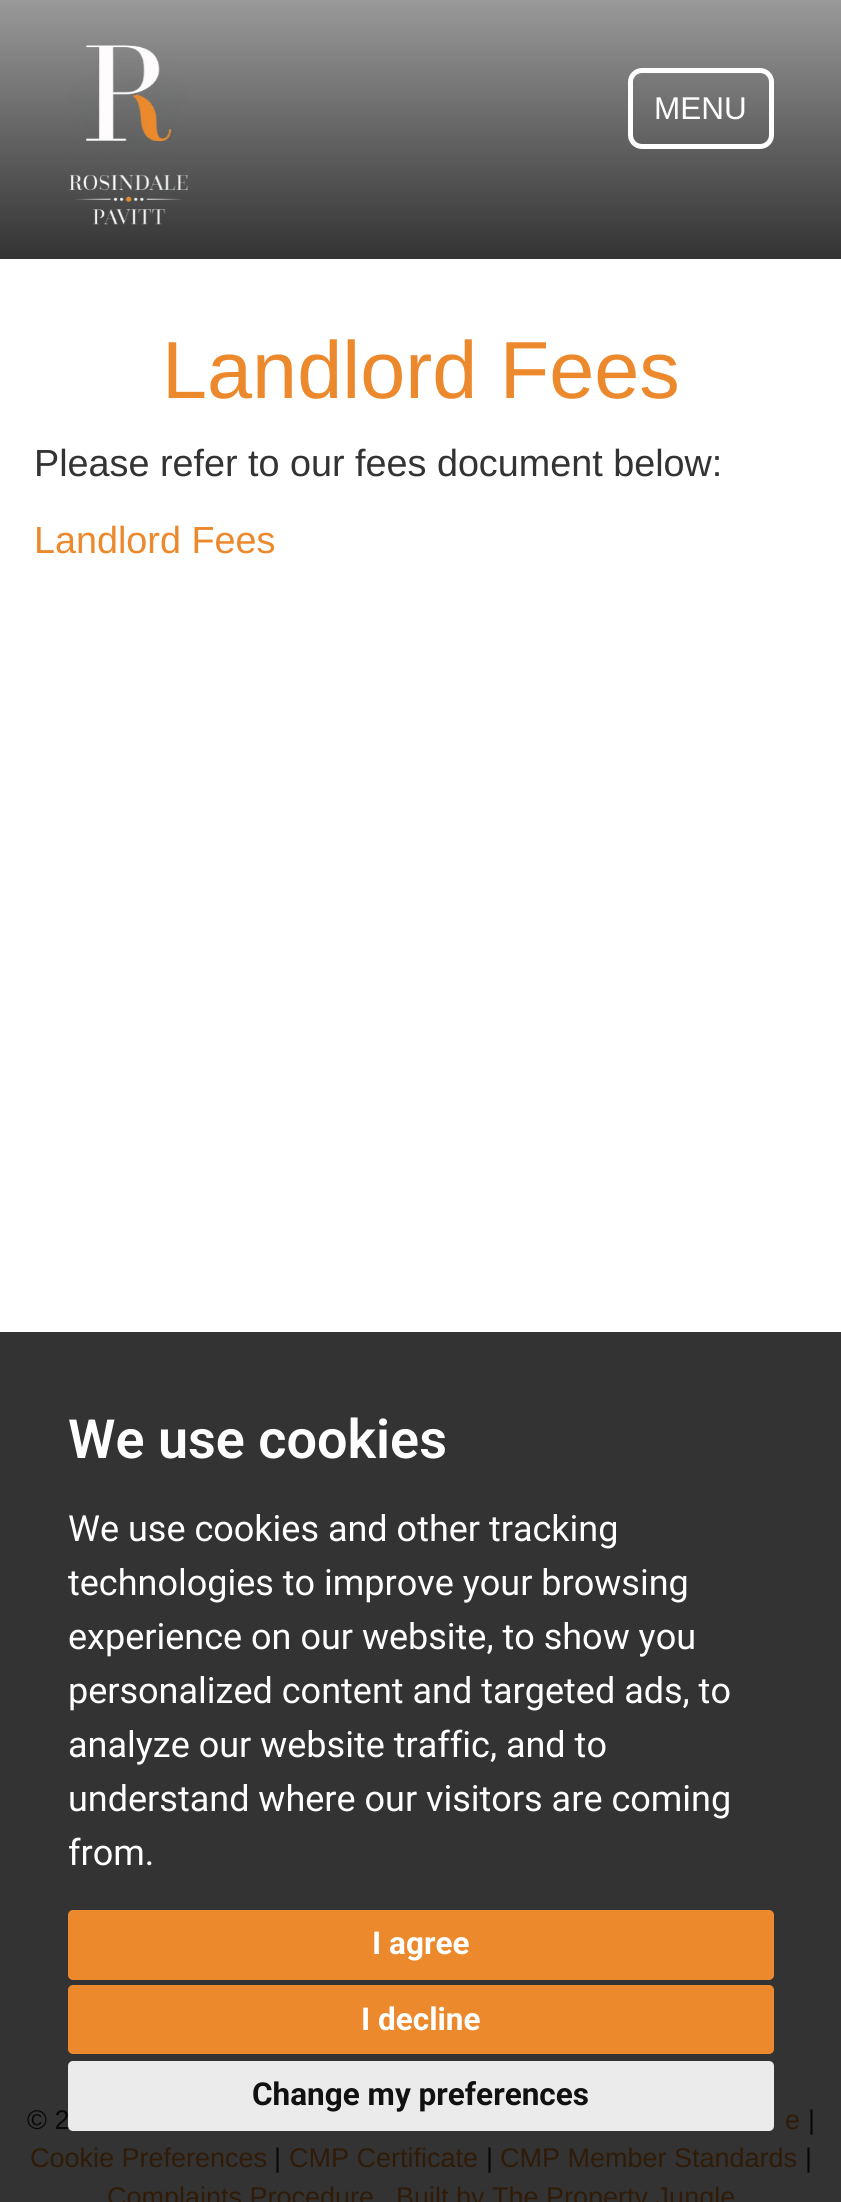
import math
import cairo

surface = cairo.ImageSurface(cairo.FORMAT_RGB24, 841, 2202)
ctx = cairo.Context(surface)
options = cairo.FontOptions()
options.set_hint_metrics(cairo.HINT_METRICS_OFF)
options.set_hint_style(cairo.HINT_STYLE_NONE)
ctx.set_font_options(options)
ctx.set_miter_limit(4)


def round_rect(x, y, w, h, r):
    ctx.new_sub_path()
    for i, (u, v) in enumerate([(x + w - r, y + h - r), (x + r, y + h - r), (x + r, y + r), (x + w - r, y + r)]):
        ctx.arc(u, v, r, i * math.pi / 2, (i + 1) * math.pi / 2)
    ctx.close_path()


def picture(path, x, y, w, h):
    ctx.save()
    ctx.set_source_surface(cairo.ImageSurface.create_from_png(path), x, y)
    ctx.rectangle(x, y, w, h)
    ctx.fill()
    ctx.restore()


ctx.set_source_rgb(1, 1, 1)
ctx.paint()
ctx.set_source_rgb(0.2, 0.2, 0.2)
ctx.rectangle(0, 1332, 841, 870)
ctx.fill()
gradient = cairo.LinearGradient(421, 0, 421, 259)
gradient.add_color_stop_rgba(0, 0.6, 0.6, 0.6, 1)
gradient.add_color_stop_rgba(1, 0.2, 0.2, 0.2, 1)
ctx.set_source(gradient)
ctx.rectangle(0, 0, 841, 259)
ctx.fill()
picture("img1.png", 69, 45, 119, 180)
round_rect(630.5, 70.5, 141, 76, 11.5)
ctx.set_source_rgb(1, 1, 1)
ctx.set_line_width(5)
ctx.stroke()
ctx.select_font_face("Arimo")
ctx.set_font_size(31.5)
ctx.move_to(654, 119)
ctx.show_text("MENU")
ctx.set_font_size(81)
ctx.set_source_rgb(0.922, 0.537, 0.176)
ctx.move_to(162, 398)
ctx.show_text("Landlord Fees")
ctx.set_font_size(37.75)
ctx.set_source_rgb(0.2, 0.2, 0.2)
ctx.move_to(34, 476)
ctx.show_text("Please refer to our fees document below:")
ctx.set_source_rgb(0.922, 0.537, 0.176)
ctx.move_to(34, 553)
ctx.show_text("Landlord Fees")
ctx.select_font_face("Roboto SemiBold")
ctx.set_font_size(54)
ctx.set_source_rgb(1, 1, 1)
ctx.move_to(68, 1458)
ctx.show_text("We use cookies")
ctx.select_font_face("Roboto")
ctx.set_font_size(36)
ctx.move_to(68, 1541)
ctx.show_text("We use cookies and other tracking")
ctx.move_to(68, 1595)
ctx.show_text("technologies to improve your browsing")
ctx.move_to(68, 1649)
ctx.show_text("experience on our website, to show you")
ctx.move_to(68, 1703)
ctx.show_text("personalized content and targeted ads, to")
ctx.move_to(68, 1757)
ctx.show_text("analyze our website traffic, and to")
ctx.move_to(68, 1811)
ctx.show_text("understand where our visitors are coming")
ctx.move_to(68, 1865)
ctx.show_text("from.")
ctx.set_source_rgb(0.922, 0.537, 0.176)
round_rect(68, 1910, 706, 70, 5)
ctx.fill()
ctx.select_font_face("Roboto", cairo.FONT_SLANT_NORMAL, cairo.FONT_WEIGHT_BOLD)
ctx.set_font_size(31.5)
ctx.set_source_rgb(1, 1, 1)
ctx.move_to(372, 1954)
ctx.show_text("I agree")
ctx.set_source_rgb(0.922, 0.537, 0.176)
round_rect(68, 1985, 706, 69, 5)
ctx.fill()
ctx.set_source_rgb(1, 1, 1)
ctx.move_to(361, 2030)
ctx.show_text("I decline")
ctx.set_source_rgb(0.918, 0.918, 0.918)
round_rect(68, 2061, 706, 70, 5)
ctx.fill()
ctx.set_source_rgb(0.067, 0.067, 0.067)
ctx.move_to(252, 2105)
ctx.show_text("Change my preferences")
ctx.select_font_face("Arimo")
ctx.set_font_size(27)
ctx.set_source_rgb(0.039, 0.039, 0.039)
ctx.move_to(27, 2129)
ctx.show_text("© 2")
ctx.set_source_rgb(0.184, 0.106, 0.035)
ctx.move_to(785, 2129)
ctx.show_text("e")
ctx.set_source_rgb(0.039, 0.039, 0.039)
ctx.move_to(808, 2129)
ctx.show_text("|")
ctx.set_source_rgb(0.184, 0.106, 0.035)
ctx.move_to(30, 2167)
ctx.show_text("Cookie Preferences")
ctx.set_source_rgb(0.039, 0.039, 0.039)
ctx.move_to(274, 2167)
ctx.show_text("|")
ctx.set_source_rgb(0.184, 0.106, 0.035)
ctx.move_to(289, 2167)
ctx.show_text("CMP Certificate")
ctx.set_source_rgb(0.039, 0.039, 0.039)
ctx.move_to(486, 2167)
ctx.show_text("|")
ctx.set_source_rgb(0.184, 0.106, 0.035)
ctx.move_to(500, 2167)
ctx.show_text("CMP Member Standards")
ctx.set_source_rgb(0.039, 0.039, 0.039)
ctx.move_to(805, 2167)
ctx.show_text("|")
ctx.set_source_rgb(0.184, 0.106, 0.035)
ctx.move_to(107, 2206)
ctx.show_text("Complaints Procedure")
ctx.move_to(396, 2206)
ctx.show_text("Built by The Property Jungle")
surface.write_to_png("page.png")
